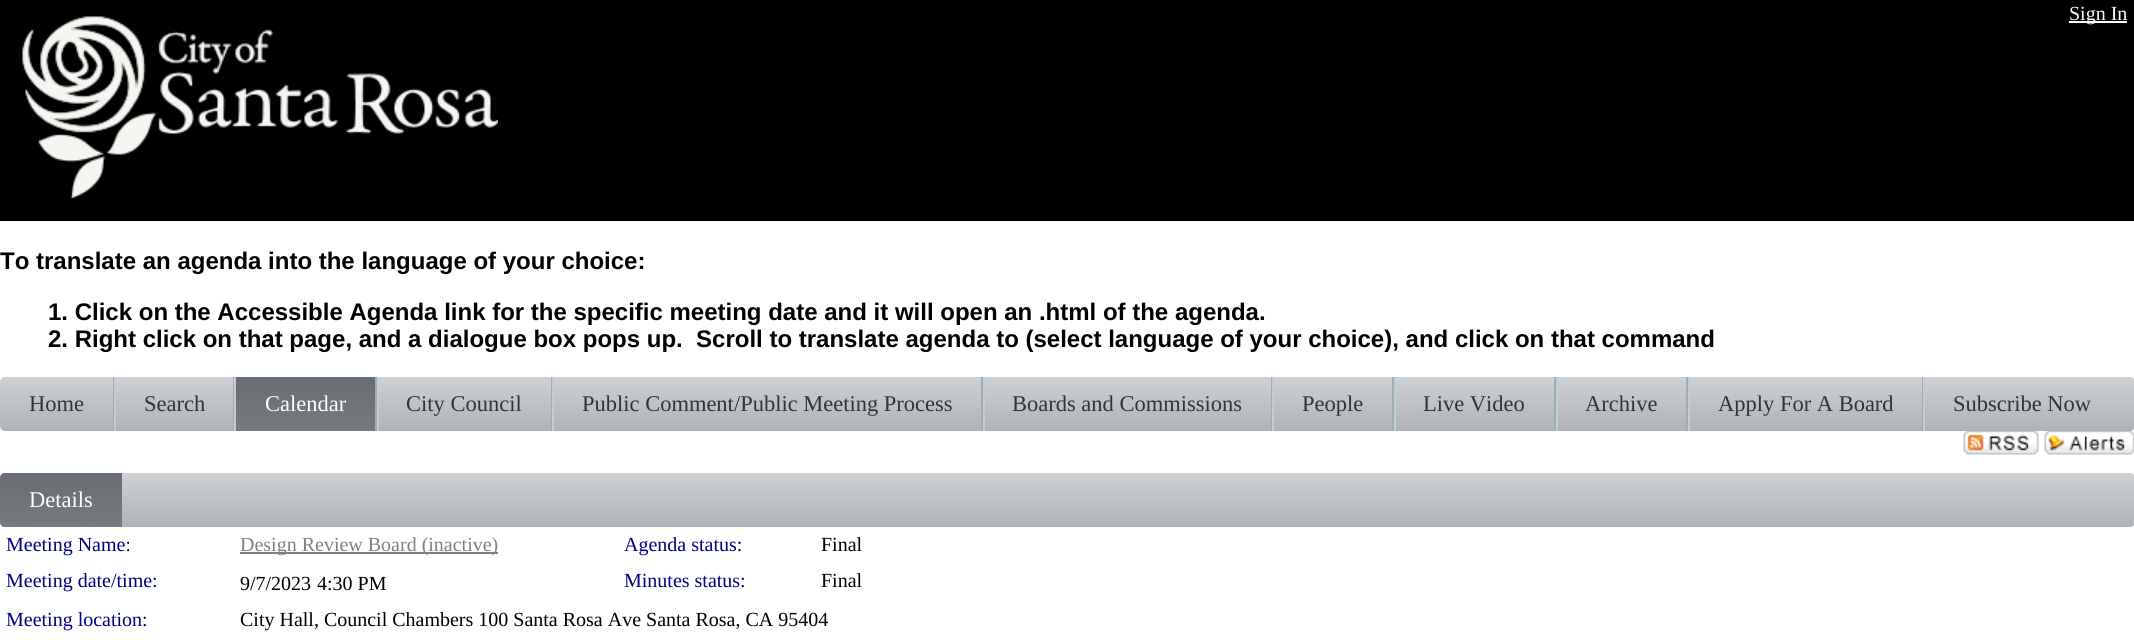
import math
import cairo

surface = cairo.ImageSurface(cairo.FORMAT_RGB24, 2134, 640)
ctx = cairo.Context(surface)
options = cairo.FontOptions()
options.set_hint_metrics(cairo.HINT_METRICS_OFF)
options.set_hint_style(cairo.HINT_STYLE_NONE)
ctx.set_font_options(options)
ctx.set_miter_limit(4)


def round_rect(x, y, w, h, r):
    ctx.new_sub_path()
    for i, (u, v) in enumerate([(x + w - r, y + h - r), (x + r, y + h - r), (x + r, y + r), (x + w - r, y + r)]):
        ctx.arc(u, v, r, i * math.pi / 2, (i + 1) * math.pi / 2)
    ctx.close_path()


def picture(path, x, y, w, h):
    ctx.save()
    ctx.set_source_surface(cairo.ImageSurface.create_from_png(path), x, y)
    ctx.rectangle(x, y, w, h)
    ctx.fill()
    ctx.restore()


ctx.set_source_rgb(1, 1, 1)
ctx.paint()
ctx.set_source_rgb(0, 0, 0)
ctx.rectangle(0, 0, 2134, 221)
ctx.fill()
ctx.set_source_rgb(1, 1, 1)
ctx.rectangle(2069, 21, 58, 2)
ctx.fill()
ctx.select_font_face("Liberation Serif")
ctx.set_font_size(20)
ctx.move_to(2069, 20)
ctx.show_text("Sign In")
picture("img1.png", 22, 16, 476, 182)
ctx.select_font_face("Liberation Sans", cairo.FONT_SLANT_NORMAL, cairo.FONT_WEIGHT_BOLD)
ctx.set_font_size(24)
ctx.set_source_rgb(0, 0, 0)
ctx.move_to(0, 269)
ctx.show_text("To translate an agenda into the language of your choice:")
ctx.move_to(48, 320)
ctx.show_text("1. Click on the Accessible Agenda link for the specific meeting date and it will open an .html of the agenda.")
ctx.move_to(48, 347)
ctx.show_text("2. Right click on that page, and a dialogue box pops up.  Scroll to translate agenda to (select language of your choice), and click on that command")
picture("img3.png", 2044, 430, 90, 25)
gradient = cairo.LinearGradient(1067, 376, 1067, 431)
gradient.add_color_stop_rgba(0, 0.808, 0.824, 0.839, 1)
gradient.add_color_stop_rgba(1, 0.686, 0.702, 0.718, 1)
ctx.set_source(gradient)
round_rect(0, 377, 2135, 54, 5)
ctx.fill()
ctx.set_source_rgb(0.604, 0.69, 0.718)
ctx.rectangle(113, 377, 1, 54)
ctx.fill()
ctx.select_font_face("Liberation Serif")
ctx.set_font_size(22.5)
ctx.set_source_rgb(0.2, 0.2, 0.2)
ctx.move_to(29, 411)
ctx.show_text("Home")
ctx.set_source_rgb(0.604, 0.69, 0.718)
ctx.rectangle(233, 377, 1, 54)
ctx.fill()
ctx.set_source_rgb(0.784, 0.796, 0.808)
ctx.rectangle(114, 377, 2, 54)
ctx.fill()
ctx.set_source_rgb(0.2, 0.2, 0.2)
ctx.move_to(144, 411)
ctx.show_text("Search")
gradient = cairo.LinearGradient(305, 377, 305, 431)
gradient.add_color_stop_rgba(0, 0.404, 0.427, 0.447, 1)
gradient.add_color_stop_rgba(1, 0.459, 0.482, 0.498, 1)
ctx.set_source(gradient)
ctx.rectangle(236, 377, 139, 54)
ctx.fill()
ctx.set_source_rgb(0.604, 0.69, 0.718)
ctx.rectangle(375, 377, 2, 54)
ctx.fill()
ctx.set_source_rgb(0.784, 0.796, 0.808)
ctx.rectangle(234, 377, 2, 54)
ctx.fill()
ctx.set_source_rgb(1, 1, 1)
ctx.move_to(265, 411)
ctx.show_text("Calendar")
ctx.set_source_rgb(0.604, 0.69, 0.718)
ctx.rectangle(551, 377, 1, 54)
ctx.fill()
ctx.set_source_rgb(0.784, 0.796, 0.808)
ctx.rectangle(377, 377, 2, 54)
ctx.fill()
ctx.set_source_rgb(0.2, 0.2, 0.2)
ctx.move_to(406, 411)
ctx.show_text("City Council")
ctx.set_source_rgb(0.604, 0.69, 0.718)
ctx.rectangle(981, 377, 2, 54)
ctx.fill()
ctx.set_source_rgb(0.784, 0.796, 0.808)
ctx.rectangle(552, 377, 2, 54)
ctx.fill()
ctx.set_source_rgb(0.2, 0.2, 0.2)
ctx.move_to(582, 411)
ctx.show_text("Public Comment/Public Meeting Process")
ctx.set_source_rgb(0.604, 0.69, 0.718)
ctx.rectangle(1271, 377, 1, 54)
ctx.fill()
ctx.set_source_rgb(0.784, 0.796, 0.808)
ctx.rectangle(983, 377, 2, 54)
ctx.fill()
ctx.set_source_rgb(0.2, 0.2, 0.2)
ctx.move_to(1012, 411)
ctx.show_text("Boards and Commissions")
ctx.set_source_rgb(0.604, 0.69, 0.718)
ctx.rectangle(1392, 377, 2, 54)
ctx.fill()
ctx.set_source_rgb(0.784, 0.796, 0.808)
ctx.rectangle(1272, 377, 2, 54)
ctx.fill()
ctx.set_source_rgb(0.2, 0.2, 0.2)
ctx.move_to(1302, 411)
ctx.show_text("People")
ctx.set_source_rgb(0.604, 0.69, 0.718)
ctx.rectangle(1554, 377, 2, 54)
ctx.fill()
ctx.set_source_rgb(0.784, 0.796, 0.808)
ctx.rectangle(1394, 377, 2, 54)
ctx.fill()
ctx.set_source_rgb(0.2, 0.2, 0.2)
ctx.move_to(1423, 411)
ctx.show_text("Live Video")
ctx.set_source_rgb(0.604, 0.69, 0.718)
ctx.rectangle(1686, 377, 2, 54)
ctx.fill()
ctx.set_source_rgb(0.784, 0.796, 0.808)
ctx.rectangle(1556, 377, 2, 54)
ctx.fill()
ctx.set_source_rgb(0.2, 0.2, 0.2)
ctx.move_to(1585, 411)
ctx.show_text("Archive")
ctx.set_source_rgb(0.604, 0.69, 0.718)
ctx.rectangle(1922, 377, 1, 54)
ctx.fill()
ctx.set_source_rgb(0.784, 0.796, 0.808)
ctx.rectangle(1688, 377, 2, 54)
ctx.fill()
ctx.set_source_rgb(0.2, 0.2, 0.2)
ctx.move_to(1718, 411)
ctx.show_text("Apply For A Board")
ctx.set_source_rgb(0.784, 0.796, 0.808)
ctx.rectangle(1923, 377, 2, 54)
ctx.fill()
ctx.set_source_rgb(0.2, 0.2, 0.2)
ctx.move_to(1953, 411)
ctx.show_text("Subscribe Now")
picture("img2.png", 1963, 431, 76, 24)
gradient = cairo.LinearGradient(1067, 472, 1067, 527)
gradient.add_color_stop_rgba(0, 0.808, 0.824, 0.839, 1)
gradient.add_color_stop_rgba(1, 0.686, 0.702, 0.718, 1)
ctx.set_source(gradient)
round_rect(0, 473, 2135, 54, 5)
ctx.fill()
gradient = cairo.LinearGradient(61, 473, 61, 527)
gradient.add_color_stop_rgba(0, 0.404, 0.427, 0.447, 1)
gradient.add_color_stop_rgba(1, 0.459, 0.482, 0.498, 1)
ctx.set_source(gradient)
ctx.new_path()
ctx.move_to(5, 473)
ctx.line_to(122, 473)
ctx.line_to(122, 527)
ctx.line_to(5, 527)
ctx.curve_to(2, 527, 0, 525, 0, 522)
ctx.line_to(0, 478)
ctx.curve_to(0, 475, 2, 473, 5, 473)
ctx.close_path()
ctx.fill()
ctx.set_source_rgb(1, 1, 1)
ctx.move_to(29, 507)
ctx.show_text("Details")
ctx.set_font_size(20)
ctx.set_source_rgb(0, 0, 0.502)
ctx.move_to(6, 551)
ctx.show_text("Meeting Name:")
ctx.set_source_rgb(0.502, 0.502, 0.502)
ctx.rectangle(240, 552, 258, 2)
ctx.fill()
ctx.move_to(240, 551)
ctx.show_text("Design Review Board (inactive)")
ctx.set_source_rgb(0, 0, 0.502)
ctx.move_to(624, 551)
ctx.show_text("Agenda status:")
ctx.set_source_rgb(0, 0, 0)
ctx.move_to(821, 551)
ctx.show_text("Final")
ctx.set_source_rgb(0, 0, 0.502)
ctx.move_to(6, 587)
ctx.show_text("Meeting date/time:")
ctx.set_source_rgb(0, 0, 0)
ctx.move_to(240, 590)
ctx.show_text("9/7/2023")
ctx.move_to(317, 590)
ctx.show_text("4:30 PM")
ctx.set_source_rgb(0, 0, 0.502)
ctx.move_to(624, 587)
ctx.show_text("Minutes status:")
ctx.set_source_rgb(0, 0, 0)
ctx.move_to(821, 587)
ctx.show_text("Final")
ctx.set_source_rgb(0, 0, 0.502)
ctx.move_to(6, 626)
ctx.show_text("Meeting location:")
ctx.set_source_rgb(0, 0, 0)
ctx.move_to(240, 626)
ctx.show_text("City Hall, Council Chambers 100 Santa Rosa Ave Santa Rosa, CA 95404")
surface.write_to_png("page.png")
